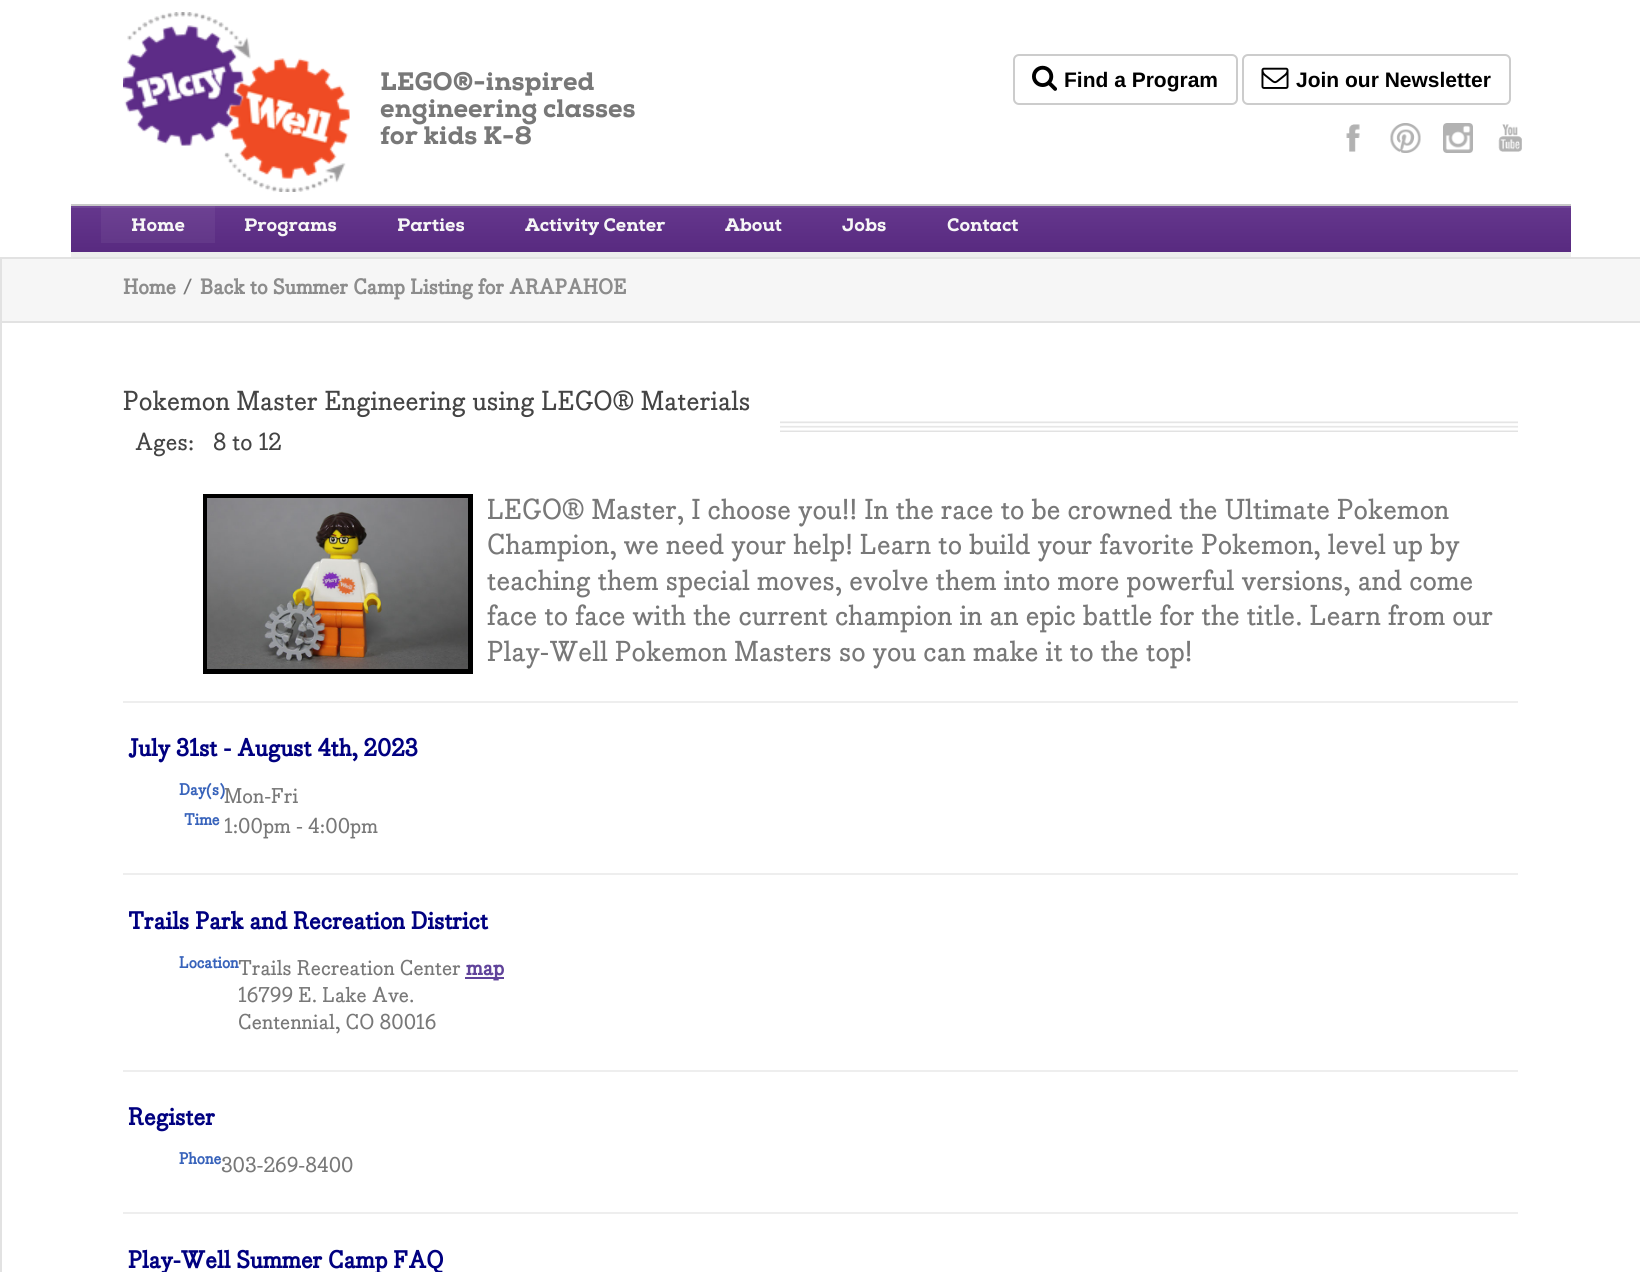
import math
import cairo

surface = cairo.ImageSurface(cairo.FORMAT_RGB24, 1640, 1272)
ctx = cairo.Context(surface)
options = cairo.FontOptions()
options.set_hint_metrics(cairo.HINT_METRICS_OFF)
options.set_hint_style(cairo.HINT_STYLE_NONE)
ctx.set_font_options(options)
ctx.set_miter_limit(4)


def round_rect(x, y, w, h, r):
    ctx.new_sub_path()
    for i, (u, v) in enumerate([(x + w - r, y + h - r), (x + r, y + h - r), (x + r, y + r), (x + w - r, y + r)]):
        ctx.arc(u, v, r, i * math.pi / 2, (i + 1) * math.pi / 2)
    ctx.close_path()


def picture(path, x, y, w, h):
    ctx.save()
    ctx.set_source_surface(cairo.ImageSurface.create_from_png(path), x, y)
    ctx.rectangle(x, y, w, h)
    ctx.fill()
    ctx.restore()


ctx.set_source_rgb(1, 1, 1)
ctx.paint()
picture("img1.png", 123, 12, 227, 180)
ctx.select_font_face("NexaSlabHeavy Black")
ctx.set_font_size(25.25)
ctx.set_source_rgb(0.471, 0.471, 0.471)
ctx.move_to(380, 90)
ctx.show_text("LEGO®-inspired")
ctx.move_to(380, 117)
ctx.show_text("engineering classes")
ctx.move_to(380, 144)
ctx.show_text("for kids K-8")
round_rect(1014, 55, 223, 49, 5)
ctx.set_source_rgb(0.8, 0.8, 0.8)
ctx.stroke()
picture("img2.png", 1032, 65, 25, 26)
ctx.select_font_face("Liberation Sans", cairo.FONT_SLANT_NORMAL, cairo.FONT_WEIGHT_BOLD)
ctx.set_font_size(21)
ctx.set_source_rgb(0, 0, 0)
ctx.move_to(1064, 87)
ctx.show_text("Find a Program")
round_rect(1243, 55, 267, 49, 5)
ctx.set_source_rgb(0.8, 0.8, 0.8)
ctx.stroke()
picture("img3.png", 1261, 67, 28, 22)
ctx.set_source_rgb(0, 0, 0)
ctx.move_to(1296, 87)
ctx.show_text("Join our Newsletter")
picture("img4.png", 1346, 124, 14, 28)
picture("img5.png", 1390, 123, 31, 30)
picture("img6.png", 1443, 123, 30, 30)
picture("img7.png", 1498, 124, 24, 28)
gradient = cairo.LinearGradient(821, 252, 821, 206)
gradient.add_color_stop_rgba(0, 0.345, 0.165, 0.502, 1)
gradient.add_color_stop_rgba(1, 0.396, 0.216, 0.553, 1)
ctx.set_source(gradient)
ctx.rectangle(71, 208, 1500, 44)
ctx.fill()
gradient = cairo.LinearGradient(821, 252, 821, 206)
gradient.add_color_stop_rgba(0, 0.376, 0.208, 0.525, 1)
gradient.add_color_stop_rgba(1, 0.427, 0.255, 0.576, 1)
ctx.set_source(gradient)
ctx.rectangle(101, 208, 114, 35)
ctx.fill()
ctx.set_source_rgb(0.443, 0.278, 0.588)
ctx.rectangle(71, 206, 1500, 2)
ctx.fill()
ctx.set_source_rgb(0.471, 0.314, 0.608)
ctx.rectangle(101, 206, 114, 2)
ctx.fill()
ctx.set_source_rgb(0.784, 0.784, 0.784)
ctx.rectangle(71, 204, 1500, 2)
ctx.fill()
ctx.set_source_rgb(0.929, 0.929, 0.929)
ctx.rectangle(71, 252, 1500, 5)
ctx.fill()
ctx.select_font_face("NexaSlabHeavy Black")
ctx.set_font_size(18)
ctx.set_source_rgb(0.961, 0.961, 0.961)
ctx.move_to(131, 231)
ctx.show_text("Home")
ctx.move_to(244, 231)
ctx.show_text("Programs")
ctx.move_to(397, 231)
ctx.show_text("Parties")
ctx.move_to(525, 231)
ctx.show_text("Activity Center")
ctx.move_to(725, 231)
ctx.show_text("About")
ctx.move_to(842, 231)
ctx.show_text("Jobs")
ctx.move_to(947, 231)
ctx.show_text("Contact")
ctx.set_source_rgb(0.886, 0.886, 0.886)
ctx.rectangle(0, 257, 2, 1015)
ctx.fill()
ctx.set_source_rgb(0.961, 0.961, 0.961)
ctx.rectangle(2, 259, 1638, 62)
ctx.fill()
ctx.set_source_rgb(0.886, 0.886, 0.886)
ctx.rectangle(2, 257, 1638, 2)
ctx.fill()
ctx.rectangle(2, 321, 1638, 2)
ctx.fill()
ctx.select_font_face("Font", cairo.FONT_SLANT_NORMAL, cairo.FONT_WEIGHT_BOLD)
ctx.set_font_size(21)
ctx.set_source_rgb(0.549, 0.549, 0.549)
ctx.move_to(123, 294)
ctx.show_text("Home")
ctx.select_font_face("Font Medium")
ctx.set_source_rgb(0.471, 0.471, 0.471)
ctx.move_to(183, 294)
ctx.show_text("/")
ctx.select_font_face("Font", cairo.FONT_SLANT_NORMAL, cairo.FONT_WEIGHT_BOLD)
ctx.set_source_rgb(0.549, 0.549, 0.549)
ctx.move_to(200, 294)
ctx.show_text("Back to Summer Camp Listing for ARAPAHOE")
picture("img8.png", 780, 421, 738, 11)
ctx.select_font_face("Font Medium")
ctx.set_font_size(27)
ctx.set_source_rgb(0.267, 0.267, 0.267)
ctx.move_to(123, 410)
ctx.show_text("Pokemon Master Engineering using LEGO® Materials")
ctx.set_font_size(24)
ctx.move_to(135, 450)
ctx.show_text("Ages:")
ctx.move_to(213, 450)
ctx.show_text("8 to 12")
ctx.rectangle(205.5, 496.5, 265, 175)
ctx.set_source_rgb(0, 0, 0)
ctx.set_line_width(5)
ctx.stroke()
picture("img9.png", 207, 498, 261, 171)
ctx.set_font_size(28.35)
ctx.set_source_rgb(0.471, 0.471, 0.471)
ctx.move_to(487, 519)
ctx.show_text("LEGO® Master, I choose you!! In the race to be crowned the Ultimate Pokemon")
ctx.move_to(487, 554)
ctx.show_text("Champion, we need your help! Learn to build your favorite Pokemon, level up by")
ctx.move_to(487, 590)
ctx.show_text("teaching them special moves, evolve them into more powerful versions, and come")
ctx.move_to(487, 625)
ctx.show_text("face to face with the current champion in an epic battle for the title. Learn from our")
ctx.move_to(487, 661)
ctx.show_text("Play-Well Pokemon Masters so you can make it to the top!")
ctx.set_source_rgb(0.933, 0.933, 0.933)
ctx.rectangle(123, 701, 1395, 2)
ctx.fill()
ctx.select_font_face("Font", cairo.FONT_SLANT_NORMAL, cairo.FONT_WEIGHT_BOLD)
ctx.set_font_size(24)
ctx.set_source_rgb(0, 0, 0.502)
ctx.move_to(128, 756)
ctx.show_text("July 31st - August 4th, 2023")
ctx.set_font_size(16)
ctx.set_source_rgb(0.22, 0.388, 0.733)
ctx.move_to(179, 795)
ctx.show_text("Day(s)")
ctx.select_font_face("Font Medium")
ctx.set_font_size(21)
ctx.set_source_rgb(0.471, 0.471, 0.471)
ctx.move_to(224, 803)
ctx.show_text("Mon-Fri")
ctx.select_font_face("Font", cairo.FONT_SLANT_NORMAL, cairo.FONT_WEIGHT_BOLD)
ctx.set_font_size(16)
ctx.set_source_rgb(0.22, 0.388, 0.733)
ctx.move_to(184, 825)
ctx.show_text("Time")
ctx.select_font_face("Font Medium")
ctx.set_font_size(21)
ctx.set_source_rgb(0.471, 0.471, 0.471)
ctx.move_to(224, 833)
ctx.show_text("1:00pm - 4:00pm")
ctx.set_source_rgb(0.933, 0.933, 0.933)
ctx.rectangle(123, 873, 1395, 2)
ctx.fill()
ctx.select_font_face("Font", cairo.FONT_SLANT_NORMAL, cairo.FONT_WEIGHT_BOLD)
ctx.set_font_size(24)
ctx.set_source_rgb(0, 0, 0.502)
ctx.move_to(128, 929)
ctx.show_text("Trails Park and Recreation District")
ctx.set_font_size(16)
ctx.set_source_rgb(0.22, 0.388, 0.733)
ctx.move_to(179, 968)
ctx.show_text("Location")
ctx.select_font_face("Font Medium")
ctx.set_font_size(21)
ctx.set_source_rgb(0.471, 0.471, 0.471)
ctx.move_to(238, 975)
ctx.show_text("Trails Recreation Center")
ctx.set_source_rgb(0.376, 0.263, 0.604)
ctx.rectangle(465, 977, 39, 2)
ctx.fill()
ctx.select_font_face("Font", cairo.FONT_SLANT_NORMAL, cairo.FONT_WEIGHT_BOLD)
ctx.move_to(466, 975)
ctx.show_text("map")
ctx.select_font_face("Font Medium")
ctx.set_source_rgb(0.471, 0.471, 0.471)
ctx.move_to(238, 1002)
ctx.show_text("16799 E. Lake Ave.")
ctx.move_to(238, 1029)
ctx.show_text("Centennial, CO 80016")
ctx.set_source_rgb(0.933, 0.933, 0.933)
ctx.rectangle(123, 1070, 1395, 2)
ctx.fill()
ctx.select_font_face("Font", cairo.FONT_SLANT_NORMAL, cairo.FONT_WEIGHT_BOLD)
ctx.set_font_size(24)
ctx.set_source_rgb(0, 0, 0.502)
ctx.move_to(128, 1125)
ctx.show_text("Register")
ctx.set_font_size(16)
ctx.set_source_rgb(0.22, 0.388, 0.733)
ctx.move_to(179, 1164)
ctx.show_text("Phone")
ctx.select_font_face("Font Medium")
ctx.set_font_size(21)
ctx.set_source_rgb(0.471, 0.471, 0.471)
ctx.move_to(221, 1172)
ctx.show_text("303-269-8400")
ctx.set_source_rgb(0.933, 0.933, 0.933)
ctx.rectangle(123, 1212, 1395, 2)
ctx.fill()
ctx.select_font_face("Font", cairo.FONT_SLANT_NORMAL, cairo.FONT_WEIGHT_BOLD)
ctx.set_font_size(24)
ctx.set_source_rgb(0, 0, 0.502)
ctx.move_to(128, 1268)
ctx.show_text("Play-Well Summer Camp FAQ")
surface.write_to_png("page.png")
